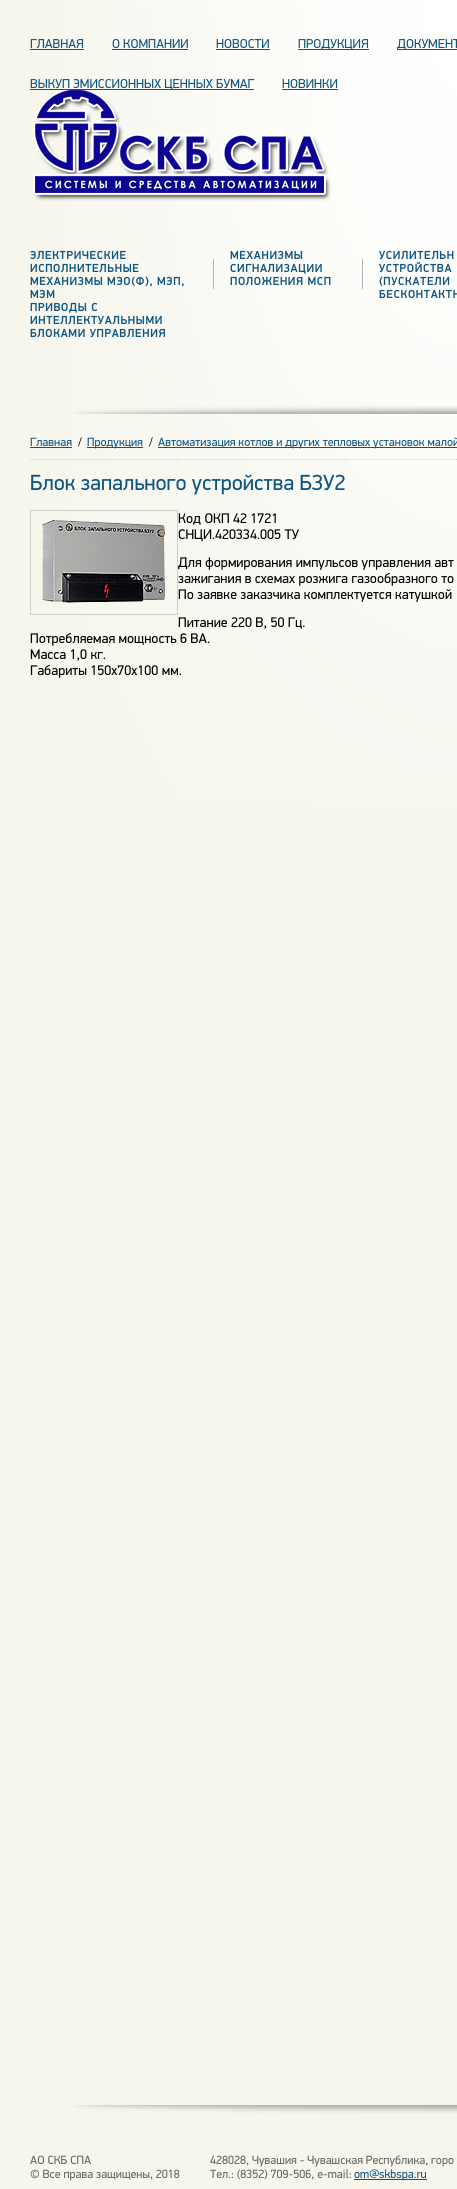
import math
import cairo

surface = cairo.ImageSurface(cairo.FORMAT_RGB24, 457, 2189)
ctx = cairo.Context(surface)
options = cairo.FontOptions()
options.set_hint_metrics(cairo.HINT_METRICS_OFF)
options.set_hint_style(cairo.HINT_STYLE_NONE)
ctx.set_font_options(options)
ctx.set_miter_limit(4)


def spaced_text(x, y, s, letter, word):
    ctx.move_to(x, y)
    for ch in s:
        ctx.show_text(ch)
        ctx.rel_move_to(letter + word * (ch == ' '), 0)


def picture(path, x, y, w, h):
    ctx.save()
    ctx.set_source_surface(cairo.ImageSurface.create_from_png(path), x, y)
    ctx.rectangle(x, y, w, h)
    ctx.fill()
    ctx.restore()


ctx.set_source_rgb(0.961, 0.961, 0.929)
ctx.paint()
picture("img1.png", 65, 0, 392, 806)
ctx.select_font_face("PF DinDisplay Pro")
ctx.set_font_size(13)
ctx.set_source_rgb(0.063, 0.333, 0.502)
ctx.move_to(30, 48)
ctx.show_text("ГЛАВНАЯ")
ctx.rectangle(30, 49, 54, 1)
ctx.fill()
ctx.move_to(112, 48)
ctx.show_text("О КОМПАНИИ")
ctx.rectangle(112, 49, 76, 1)
ctx.fill()
ctx.move_to(216, 48)
ctx.show_text("НОВОСТИ")
ctx.rectangle(216, 49, 54, 1)
ctx.fill()
ctx.rectangle(298, 49, 71, 1)
ctx.fill()
ctx.move_to(298, 48)
ctx.show_text("ПРОДУКЦИЯ")
ctx.rectangle(397, 49, 60, 1)
ctx.fill()
ctx.move_to(397, 48)
ctx.show_text("ДОКУМЕНТ")
picture("img2.png", 33, 88, 298, 113)
ctx.rectangle(30, 89, 224, 1)
ctx.fill()
ctx.move_to(30, 88)
ctx.show_text("ВЫКУП ЭМИССИОННЫХ ЦЕННЫХ БУМАГ")
ctx.move_to(282, 88)
ctx.show_text("НОВИНКИ")
ctx.rectangle(282, 89, 56, 1)
ctx.fill()
ctx.select_font_face("PF DinDisplay Pro", cairo.FONT_SLANT_NORMAL, cairo.FONT_WEIGHT_BOLD)
ctx.set_font_size(11.25)
spaced_text(30, 259, "ЭЛЕКТРИЧЕСКИЕ", 1, 0)
spaced_text(30, 272, "ИСПОЛНИТЕЛЬНЫЕ", 1, 0)
spaced_text(30, 285, "МЕХАНИЗМЫ МЭО(Ф), МЭП,", 1, 0)
spaced_text(30, 298, "МЭМ", 1, 0)
spaced_text(30, 311, "ПРИВОДЫ С", 1, 0)
spaced_text(30, 324, "ИНТЕЛЛЕКТУАЛЬНЫМИ", 1, 0)
spaced_text(30, 337, "БЛОКАМИ УПРАВЛЕНИЯ", 1, 0)
picture("img3.png", 213, 259, 2, 30)
spaced_text(230, 259, "МЕХАНИЗМЫ", 1, 0)
spaced_text(230, 272, "СИГНАЛИЗАЦИИ", 1, 0)
spaced_text(230, 285, "ПОЛОЖЕНИЯ МСП", 1, 0)
picture("img3.png", 362, 259, 2, 30)
spaced_text(379, 259, "УСИЛИТЕЛЬН", 1, 0)
spaced_text(379, 272, "УСТРОЙСТВА", 1, 0)
spaced_text(379, 285, "(ПУСКАТЕЛИ", 1, 0)
spaced_text(379, 298, "БЕСКОНТАКТН", 1, 0)
picture("img4.png", 73, 405, 384, 9)
ctx.new_path()
ctx.move_to(30, 459.5)
ctx.line_to(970, 459.5)
ctx.set_source_rgb(0.8, 0.8, 0.8)
ctx.set_line_width(1)
ctx.set_dash([1, 1])
ctx.stroke()
ctx.select_font_face("PF DinDisplay Pro")
ctx.set_font_size(12)
ctx.set_source_rgb(0.063, 0.333, 0.502)
ctx.move_to(30, 446)
ctx.show_text("Главная")
ctx.rectangle(30, 447, 42, 1)
ctx.fill()
ctx.set_source_rgb(0, 0, 0)
ctx.move_to(78, 446)
ctx.show_text("/")
ctx.set_source_rgb(0.063, 0.333, 0.502)
ctx.rectangle(87, 447, 56, 1)
ctx.fill()
ctx.move_to(87, 446)
ctx.show_text("Продукция")
ctx.set_source_rgb(0, 0, 0)
ctx.move_to(149, 446)
ctx.show_text("/")
ctx.set_source_rgb(0.063, 0.333, 0.502)
ctx.rectangle(158, 447, 299, 1)
ctx.fill()
ctx.move_to(158, 446)
ctx.show_text("Автоматизация котлов и других тепловых установок малой")
ctx.set_font_size(22)
ctx.move_to(30, 490)
ctx.show_text("Блок запального устройства БЗУ2")
ctx.rectangle(30.5, 510.5, 147, 104)
ctx.set_source_rgb(0.8, 0.8, 0.8)
ctx.set_dash([])
ctx.stroke()
picture("img5.png", 42, 520, 123, 83)
ctx.set_font_size(14)
ctx.set_source_rgb(0, 0, 0)
ctx.move_to(178, 523)
ctx.show_text("Код ОКП 42 1721")
ctx.move_to(178, 539)
ctx.show_text("СНЦИ.420334.005 ТУ")
ctx.move_to(178, 567)
ctx.show_text("Для формирования импульсов управления авт")
ctx.move_to(178, 583)
ctx.show_text("зажигания в схемах розжига газообразного то")
ctx.move_to(178, 599)
ctx.show_text("По заявке заказчика комплектуется катушкой")
ctx.move_to(178, 627)
ctx.show_text("Питание 220 В, 50 Гц.")
ctx.move_to(30, 643)
ctx.show_text("Потребляемая мощность 6 ВА.")
ctx.move_to(30, 659)
ctx.show_text("Масса 1,0 кг.")
ctx.move_to(30, 675)
ctx.show_text("Габариты 150x70x100 мм.")
picture("img6.png", 73, 2105, 384, 9)
ctx.set_font_size(12)
ctx.set_source_rgb(0.4, 0.4, 0.4)
ctx.move_to(30, 2164)
ctx.show_text("АО СКБ СПА")
ctx.move_to(30, 2178)
ctx.show_text("© Все права защищены, 2018")
ctx.move_to(210, 2164)
ctx.show_text("428028, Чувашия - Чувашская Республика, горо")
ctx.move_to(210, 2178)
ctx.show_text("Тел.: (8352) 709-506, e-mail:")
ctx.set_source_rgb(0.063, 0.333, 0.502)
ctx.rectangle(354, 2179, 73, 1)
ctx.fill()
ctx.move_to(354, 2178)
ctx.show_text("om@skbspa.ru")
surface.write_to_png("page.png")
